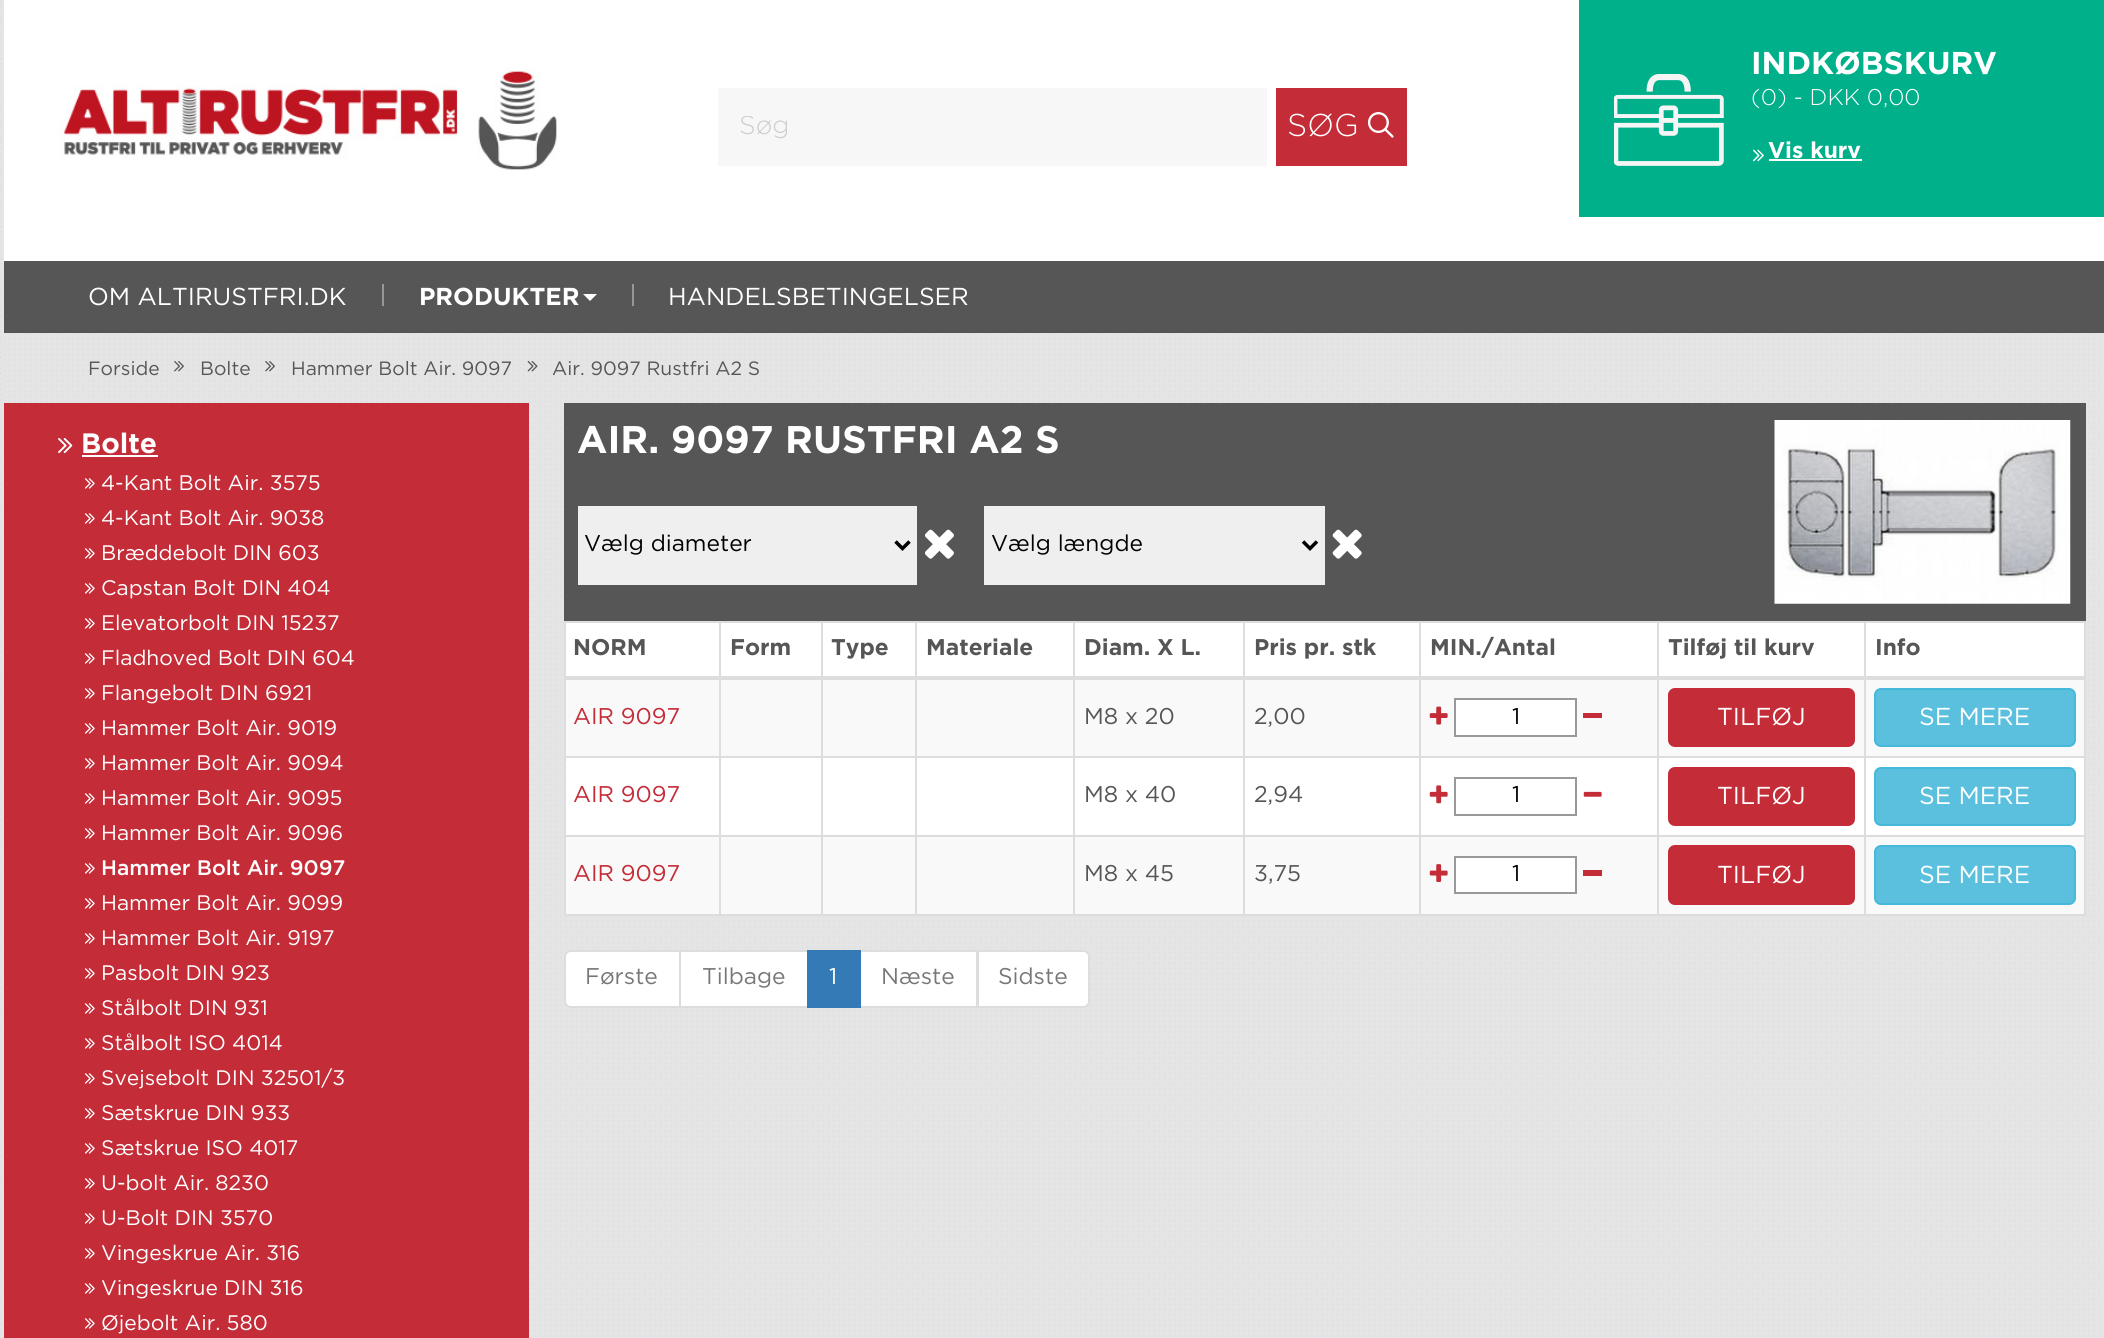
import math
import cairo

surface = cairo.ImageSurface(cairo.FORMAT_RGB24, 2104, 1338)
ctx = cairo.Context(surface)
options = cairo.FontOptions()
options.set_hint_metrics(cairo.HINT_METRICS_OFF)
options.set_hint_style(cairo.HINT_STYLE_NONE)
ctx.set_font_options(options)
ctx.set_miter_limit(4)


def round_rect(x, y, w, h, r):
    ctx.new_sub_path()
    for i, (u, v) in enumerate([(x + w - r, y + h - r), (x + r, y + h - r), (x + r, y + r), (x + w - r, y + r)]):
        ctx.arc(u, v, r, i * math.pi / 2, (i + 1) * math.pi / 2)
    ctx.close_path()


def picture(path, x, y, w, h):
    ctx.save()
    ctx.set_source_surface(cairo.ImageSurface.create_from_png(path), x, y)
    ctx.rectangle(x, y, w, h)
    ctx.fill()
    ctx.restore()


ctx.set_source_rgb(0.898, 0.898, 0.898)
ctx.paint()
picture("img1.png", 0, 0, 3, 1335)
ctx.set_source_rgb(0.341, 0.337, 0.337)
ctx.rectangle(4, 261, 2100, 72)
ctx.fill()
ctx.set_source_rgb(1, 1, 1)
ctx.rectangle(4, 0, 2100, 261)
ctx.fill()
ctx.set_source_rgb(0.965, 0.965, 0.965)
ctx.rectangle(718, 88, 549, 78)
ctx.fill()
ctx.save()
ctx.rectangle(740, 116, 497, 24)
ctx.clip()
ctx.select_font_face("Gotham Light")
ctx.set_font_size(26)
ctx.set_source_rgb(0.804, 0.804, 0.804)
ctx.move_to(739, 134)
ctx.show_text("Søg")
ctx.restore()
ctx.set_source_rgb(0.769, 0.173, 0.22)
ctx.rectangle(1276, 88, 131, 78)
ctx.fill()
ctx.select_font_face("Gotham Light")
ctx.set_font_size(31.5)
ctx.set_source_rgb(1, 1, 1)
ctx.move_to(1287, 136)
ctx.show_text("SØG")
picture("img2.png", 1367, 112, 27, 26)
ctx.select_font_face("Gotham")
ctx.set_font_size(24.5)
ctx.move_to(88, 305)
ctx.show_text("OM ALTIRUSTFRI.DK")
ctx.set_source_rgb(0.596, 0.592, 0.592)
ctx.rectangle(382, 284, 2, 22)
ctx.fill()
ctx.select_font_face("Gotham", cairo.FONT_SLANT_NORMAL, cairo.FONT_WEIGHT_BOLD)
ctx.set_source_rgb(1, 1, 1)
ctx.move_to(419, 305)
ctx.show_text("PRODUKTER")
ctx.new_path()
ctx.move_to(583, 294)
ctx.line_to(597, 294)
ctx.line_to(590, 301)
ctx.close_path()
ctx.fill()
ctx.set_source_rgb(0.596, 0.592, 0.592)
ctx.rectangle(632, 284, 2, 22)
ctx.fill()
ctx.select_font_face("Gotham")
ctx.set_source_rgb(1, 1, 1)
ctx.move_to(668, 305)
ctx.show_text("HANDELSBETINGELSER")
picture("img3.png", 58, 67, 499, 103)
ctx.set_source_rgb(0, 0.69, 0.545)
ctx.rectangle(1579, 0, 525, 217)
ctx.fill()
picture("img4.png", 1614, 74, 110, 92)
ctx.select_font_face("Gotham", cairo.FONT_SLANT_NORMAL, cairo.FONT_WEIGHT_BOLD)
ctx.set_font_size(31.5)
ctx.set_source_rgb(1, 1, 1)
ctx.move_to(1751, 74)
ctx.show_text("INDKØBSKURV")
ctx.select_font_face("Gotham Light")
ctx.set_font_size(22.75)
ctx.move_to(1751, 105)
ctx.show_text("(0) - DKK 0,00")
picture("img5.png", 1753, 149, 11, 13)
ctx.select_font_face("Gotham", cairo.FONT_SLANT_NORMAL, cairo.FONT_WEIGHT_BOLD)
ctx.move_to(1768, 158)
ctx.show_text("Vis kurv")
ctx.rectangle(1769, 159, 93, 2)
ctx.fill()
picture("img6.png", 4, 333, 2096, 1004)
ctx.select_font_face("Gotham")
ctx.set_font_size(19.25)
ctx.set_source_rgb(0.341, 0.337, 0.337)
ctx.move_to(88, 375)
ctx.show_text("Forside")
picture("img7.png", 174, 361, 10, 11)
ctx.move_to(200, 375)
ctx.show_text("Bolte")
picture("img8.png", 265, 361, 10, 11)
ctx.move_to(291, 375)
ctx.show_text("Hammer Bolt Air. 9097")
picture("img9.png", 527, 361, 11, 11)
ctx.move_to(552, 375)
ctx.show_text("Air. 9097 Rustfri A2 S")
ctx.set_source_rgb(0.769, 0.173, 0.22)
ctx.rectangle(4, 403, 525, 935)
ctx.fill()
picture("img10.png", 58, 438, 15, 16)
ctx.select_font_face("Gotham", cairo.FONT_SLANT_NORMAL, cairo.FONT_WEIGHT_BOLD)
ctx.set_font_size(28)
ctx.set_source_rgb(1, 1, 1)
ctx.move_to(81, 453)
ctx.show_text("Bolte")
ctx.rectangle(82, 455, 76, 2)
ctx.fill()
picture("img11.png", 84, 478, 11, 11)
ctx.select_font_face("Gotham")
ctx.set_font_size(21)
ctx.move_to(101, 490)
ctx.show_text("4-Kant Bolt Air. 3575")
picture("img11.png", 84, 513, 11, 11)
ctx.move_to(101, 525)
ctx.show_text("4-Kant Bolt Air. 9038")
picture("img11.png", 84, 548, 11, 11)
ctx.move_to(101, 560)
ctx.show_text("Bræddebolt DIN 603")
picture("img11.png", 84, 583, 11, 11)
ctx.move_to(101, 595)
ctx.show_text("Capstan Bolt DIN 404")
picture("img11.png", 84, 618, 11, 11)
ctx.move_to(101, 630)
ctx.show_text("Elevatorbolt DIN 15237")
picture("img11.png", 84, 653, 11, 11)
ctx.move_to(101, 665)
ctx.show_text("Fladhoved Bolt DIN 604")
picture("img11.png", 84, 688, 11, 11)
ctx.move_to(101, 700)
ctx.show_text("Flangebolt DIN 6921")
picture("img11.png", 84, 723, 11, 11)
ctx.move_to(101, 735)
ctx.show_text("Hammer Bolt Air. 9019")
picture("img11.png", 84, 758, 11, 11)
ctx.move_to(101, 770)
ctx.show_text("Hammer Bolt Air. 9094")
picture("img11.png", 84, 793, 11, 11)
ctx.move_to(101, 805)
ctx.show_text("Hammer Bolt Air. 9095")
picture("img11.png", 84, 828, 11, 11)
ctx.move_to(101, 840)
ctx.show_text("Hammer Bolt Air. 9096")
picture("img11.png", 84, 863, 11, 11)
ctx.select_font_face("Gotham Medium")
ctx.move_to(101, 875)
ctx.show_text("Hammer Bolt Air. 9097")
picture("img11.png", 84, 898, 11, 11)
ctx.select_font_face("Gotham")
ctx.move_to(101, 910)
ctx.show_text("Hammer Bolt Air. 9099")
picture("img11.png", 84, 933, 11, 11)
ctx.move_to(101, 945)
ctx.show_text("Hammer Bolt Air. 9197")
picture("img11.png", 84, 968, 11, 11)
ctx.move_to(101, 980)
ctx.show_text("Pasbolt DIN 923")
picture("img11.png", 84, 1003, 11, 11)
ctx.move_to(101, 1015)
ctx.show_text("Stålbolt DIN 931")
picture("img11.png", 84, 1038, 11, 11)
ctx.move_to(101, 1050)
ctx.show_text("Stålbolt ISO 4014")
picture("img11.png", 84, 1073, 11, 11)
ctx.move_to(101, 1085)
ctx.show_text("Svejsebolt DIN 32501/3")
picture("img11.png", 84, 1108, 11, 11)
ctx.move_to(101, 1120)
ctx.show_text("Sætskrue DIN 933")
picture("img11.png", 84, 1143, 11, 11)
ctx.move_to(101, 1155)
ctx.show_text("Sætskrue ISO 4017")
picture("img11.png", 84, 1178, 11, 11)
ctx.move_to(101, 1190)
ctx.show_text("U-bolt Air. 8230")
picture("img11.png", 84, 1213, 11, 11)
ctx.move_to(101, 1225)
ctx.show_text("U-Bolt DIN 3570")
picture("img11.png", 84, 1248, 11, 11)
ctx.move_to(101, 1260)
ctx.show_text("Vingeskrue Air. 316")
picture("img11.png", 84, 1283, 11, 11)
ctx.move_to(101, 1295)
ctx.show_text("Vingeskrue DIN 316")
picture("img11.png", 84, 1318, 11, 11)
ctx.move_to(101, 1330)
ctx.show_text("Øjebolt Air. 580")
ctx.set_source_rgb(0.341, 0.337, 0.337)
ctx.rectangle(564, 403, 1522, 218)
ctx.fill()
ctx.select_font_face("Gotham", cairo.FONT_SLANT_NORMAL, cairo.FONT_WEIGHT_BOLD)
ctx.set_font_size(38.5)
ctx.set_source_rgb(1, 1, 1)
ctx.move_to(577, 453)
ctx.show_text("AIR. 9097 RUSTFRI A2 S")
ctx.set_source_rgb(0.937, 0.937, 0.937)
ctx.rectangle(578, 506, 339, 79)
ctx.fill()
ctx.new_path()
ctx.move_to(895.5, 541.5)
ctx.line_to(902.5, 548.5)
ctx.line_to(909.5, 541.5)
ctx.set_source_rgb(0, 0, 0)
ctx.set_line_width(3.5)
ctx.stroke()
ctx.select_font_face("Gotham")
ctx.set_font_size(22.75)
ctx.move_to(584, 551)
ctx.show_text("Vælg diameter")
picture("img12.png", 925, 529, 29, 30)
ctx.set_source_rgb(0.937, 0.937, 0.937)
ctx.rectangle(984, 506, 341, 79)
ctx.fill()
ctx.new_path()
ctx.move_to(1303, 541.5)
ctx.line_to(1310, 548.5)
ctx.line_to(1317, 541.5)
ctx.set_source_rgb(0, 0, 0)
ctx.stroke()
ctx.move_to(991, 551)
ctx.show_text("Vælg længde")
picture("img13.png", 1332, 529, 30, 30)
picture("img14.png", 1774, 420, 297, 184)
ctx.set_source_rgb(1, 1, 1)
ctx.rectangle(566, 623, 1518, 212)
ctx.fill()
ctx.set_source_rgb(0.867, 0.867, 0.867)
ctx.rectangle(564, 621, 1522, 2)
ctx.fill()
ctx.rectangle(2084, 621, 2, 294)
ctx.fill()
ctx.rectangle(564, 914, 1522, 2)
ctx.fill()
ctx.rectangle(564, 621, 2, 294)
ctx.fill()
ctx.select_font_face("Gotham", cairo.FONT_SLANT_NORMAL, cairo.FONT_WEIGHT_BOLD)
ctx.set_source_rgb(0.341, 0.337, 0.337)
ctx.move_to(573, 655)
ctx.show_text("NORM")
ctx.move_to(730, 655)
ctx.show_text("Form")
ctx.move_to(831, 655)
ctx.show_text("Type")
ctx.move_to(926, 655)
ctx.show_text("Materiale")
ctx.move_to(1084, 655)
ctx.show_text("Diam. X L.")
ctx.move_to(1254, 655)
ctx.show_text("Pris pr. stk")
ctx.move_to(1430, 655)
ctx.show_text("MIN./Antal")
ctx.move_to(1668, 655)
ctx.show_text("Tilføj til kurv")
ctx.set_source_rgb(0.976, 0.976, 0.976)
ctx.rectangle(566, 680, 1518, 76)
ctx.fill()
ctx.set_source_rgb(0.867, 0.867, 0.867)
ctx.rectangle(1864, 756, 222, 2)
ctx.fill()
ctx.rectangle(1864, 835, 222, 2)
ctx.fill()
ctx.set_source_rgb(0.976, 0.976, 0.976)
ctx.rectangle(566, 837, 1518, 77)
ctx.fill()
ctx.set_source_rgb(0.867, 0.867, 0.867)
ctx.rectangle(1864, 835, 2, 80)
ctx.fill()
ctx.rectangle(1657, 835, 209, 2)
ctx.fill()
ctx.rectangle(1864, 756, 2, 81)
ctx.fill()
ctx.rectangle(1657, 756, 209, 2)
ctx.fill()
ctx.rectangle(1657, 835, 2, 80)
ctx.fill()
ctx.rectangle(1419, 835, 240, 2)
ctx.fill()
ctx.rectangle(1657, 756, 2, 81)
ctx.fill()
ctx.rectangle(1419, 756, 240, 2)
ctx.fill()
ctx.rectangle(1419, 835, 2, 80)
ctx.fill()
ctx.rectangle(1243, 835, 178, 2)
ctx.fill()
ctx.rectangle(1419, 756, 2, 81)
ctx.fill()
ctx.rectangle(1243, 756, 178, 2)
ctx.fill()
ctx.rectangle(1243, 835, 2, 80)
ctx.fill()
ctx.rectangle(1073, 835, 171, 2)
ctx.fill()
ctx.rectangle(1243, 756, 2, 81)
ctx.fill()
ctx.rectangle(1073, 756, 171, 2)
ctx.fill()
ctx.rectangle(1073, 835, 2, 80)
ctx.fill()
ctx.rectangle(915, 835, 160, 2)
ctx.fill()
ctx.rectangle(1073, 756, 2, 81)
ctx.fill()
ctx.rectangle(915, 756, 160, 2)
ctx.fill()
ctx.rectangle(915, 835, 2, 80)
ctx.fill()
ctx.rectangle(821, 835, 96, 2)
ctx.fill()
ctx.rectangle(915, 756, 2, 81)
ctx.fill()
ctx.rectangle(821, 756, 96, 2)
ctx.fill()
ctx.rectangle(821, 835, 2, 80)
ctx.fill()
ctx.rectangle(719, 835, 104, 2)
ctx.fill()
ctx.rectangle(821, 756, 2, 81)
ctx.fill()
ctx.rectangle(719, 756, 104, 2)
ctx.fill()
ctx.rectangle(719, 835, 2, 80)
ctx.fill()
ctx.rectangle(564, 835, 157, 2)
ctx.fill()
ctx.rectangle(719, 756, 2, 81)
ctx.fill()
ctx.rectangle(564, 756, 157, 2)
ctx.fill()
ctx.rectangle(719, 621, 2, 137)
ctx.fill()
ctx.rectangle(821, 621, 2, 137)
ctx.fill()
ctx.rectangle(915, 621, 2, 137)
ctx.fill()
ctx.rectangle(1073, 621, 2, 137)
ctx.fill()
ctx.rectangle(1243, 621, 2, 137)
ctx.fill()
ctx.rectangle(1419, 621, 2, 137)
ctx.fill()
ctx.rectangle(1657, 621, 2, 137)
ctx.fill()
ctx.rectangle(1864, 621, 2, 137)
ctx.fill()
ctx.rectangle(564, 676, 1522, 4)
ctx.fill()
ctx.set_source_rgb(0.341, 0.337, 0.337)
ctx.move_to(1875, 655)
ctx.show_text("Info")
ctx.select_font_face("Gotham")
ctx.set_source_rgb(0.769, 0.173, 0.22)
ctx.move_to(573, 724)
ctx.show_text("AIR 9097")
ctx.set_source_rgb(0.341, 0.337, 0.337)
ctx.move_to(1084, 724)
ctx.show_text("M8 x 20")
ctx.move_to(1254, 724)
ctx.show_text("2,00")
picture("img15.png", 1429, 706, 19, 19)
ctx.set_source_rgb(1, 1, 1)
ctx.rectangle(1455, 699, 121, 37)
ctx.fill_preserve()
ctx.set_source_rgb(0.6, 0.6, 0.6)
ctx.set_line_width(2)
ctx.stroke()
ctx.set_source_rgb(0, 0, 0)
ctx.move_to(1512, 724)
ctx.show_text("1")
ctx.set_source_rgb(0.769, 0.173, 0.22)
ctx.rectangle(1583, 713, 19, 5)
ctx.fill()
round_rect(1669, 689, 185, 57, 6)
ctx.fill_preserve()
ctx.stroke()
ctx.set_font_size(24.5)
ctx.set_source_rgb(1, 1, 1)
ctx.move_to(1717, 725)
ctx.show_text("TILFØJ")
ctx.set_source_rgb(0.357, 0.753, 0.871)
round_rect(1875, 689, 200, 57, 6)
ctx.fill_preserve()
ctx.set_source_rgb(0.275, 0.722, 0.855)
ctx.stroke()
ctx.set_source_rgb(1, 1, 1)
ctx.move_to(1919, 725)
ctx.show_text("SE MERE")
ctx.set_font_size(22.75)
ctx.set_source_rgb(0.769, 0.173, 0.22)
ctx.move_to(573, 802)
ctx.show_text("AIR 9097")
ctx.set_source_rgb(0.341, 0.337, 0.337)
ctx.move_to(1084, 802)
ctx.show_text("M8 x 40")
ctx.move_to(1254, 802)
ctx.show_text("2,94")
picture("img16.png", 1429, 785, 19, 19)
ctx.rectangle(1455, 778, 121, 37)
ctx.set_source_rgb(0.6, 0.6, 0.6)
ctx.stroke()
ctx.set_source_rgb(0, 0, 0)
ctx.move_to(1512, 802)
ctx.show_text("1")
picture("img17.png", 1583, 791, 19, 6)
ctx.set_source_rgb(0.769, 0.173, 0.22)
round_rect(1669, 768, 185, 57, 6)
ctx.fill_preserve()
ctx.stroke()
ctx.set_font_size(24.5)
ctx.set_source_rgb(1, 1, 1)
ctx.move_to(1717, 804)
ctx.show_text("TILFØJ")
ctx.set_source_rgb(0.357, 0.753, 0.871)
round_rect(1875, 768, 200, 57, 6)
ctx.fill_preserve()
ctx.set_source_rgb(0.275, 0.722, 0.855)
ctx.stroke()
ctx.set_source_rgb(1, 1, 1)
ctx.move_to(1919, 804)
ctx.show_text("SE MERE")
ctx.set_font_size(22.75)
ctx.set_source_rgb(0.769, 0.173, 0.22)
ctx.move_to(573, 881)
ctx.show_text("AIR 9097")
ctx.set_source_rgb(0.341, 0.337, 0.337)
ctx.move_to(1084, 881)
ctx.show_text("M8 x 45")
ctx.move_to(1254, 881)
ctx.show_text("3,75")
picture("img18.png", 1429, 864, 19, 18)
ctx.set_source_rgb(1, 1, 1)
ctx.rectangle(1455, 857, 121, 36)
ctx.fill_preserve()
ctx.set_source_rgb(0.6, 0.6, 0.6)
ctx.stroke()
ctx.set_source_rgb(0, 0, 0)
ctx.move_to(1512, 881)
ctx.show_text("1")
ctx.set_source_rgb(0.769, 0.173, 0.22)
ctx.rectangle(1583, 870, 19, 6)
ctx.fill()
round_rect(1669, 846, 185, 58, 6)
ctx.fill_preserve()
ctx.stroke()
ctx.set_font_size(24.5)
ctx.set_source_rgb(1, 1, 1)
ctx.move_to(1717, 883)
ctx.show_text("TILFØJ")
ctx.set_source_rgb(0.357, 0.753, 0.871)
round_rect(1875, 846, 200, 58, 6)
ctx.fill_preserve()
ctx.set_source_rgb(0.275, 0.722, 0.855)
ctx.stroke()
ctx.set_source_rgb(1, 1, 1)
ctx.move_to(1919, 883)
ctx.show_text("SE MERE")
ctx.new_path()
ctx.move_to(571, 951)
ctx.line_to(680, 951)
ctx.line_to(680, 1007)
ctx.line_to(571, 1007)
ctx.curve_to(567.5, 1007, 565, 1004.5, 565, 1001)
ctx.line_to(565, 957)
ctx.curve_to(565, 953.5, 567.5, 951, 571, 951)
ctx.close_path()
ctx.fill_preserve()
ctx.set_source_rgb(0.867, 0.867, 0.867)
ctx.stroke()
ctx.set_font_size(22.75)
ctx.set_source_rgb(0.467, 0.467, 0.467)
ctx.move_to(585, 984)
ctx.show_text("Første")
ctx.set_source_rgb(1, 1, 1)
ctx.rectangle(680, 951, 128, 56)
ctx.fill_preserve()
ctx.set_source_rgb(0.867, 0.867, 0.867)
ctx.stroke()
ctx.set_source_rgb(0.467, 0.467, 0.467)
ctx.move_to(702, 984)
ctx.show_text("Tilbage")
ctx.set_source_rgb(1, 1, 1)
ctx.rectangle(860, 951, 117, 56)
ctx.fill_preserve()
ctx.set_source_rgb(0.867, 0.867, 0.867)
ctx.stroke()
ctx.set_source_rgb(0.2, 0.478, 0.718)
ctx.rectangle(807, 950, 54, 58)
ctx.fill()
ctx.set_source_rgb(1, 1, 1)
ctx.move_to(829, 984)
ctx.show_text("1")
ctx.set_source_rgb(0.467, 0.467, 0.467)
ctx.move_to(881, 984)
ctx.show_text("Næste")
ctx.set_source_rgb(1, 1, 1)
ctx.new_path()
ctx.move_to(978, 951)
ctx.line_to(1083, 951)
ctx.curve_to(1086.5, 951, 1089, 953.5, 1089, 957)
ctx.line_to(1089, 1001)
ctx.curve_to(1089, 1004.5, 1086.5, 1007, 1083, 1007)
ctx.line_to(978, 1007)
ctx.close_path()
ctx.fill_preserve()
ctx.set_source_rgb(0.867, 0.867, 0.867)
ctx.stroke()
ctx.set_source_rgb(0.467, 0.467, 0.467)
ctx.move_to(998, 984)
ctx.show_text("Sidste")
surface.write_to_png("page.png")
